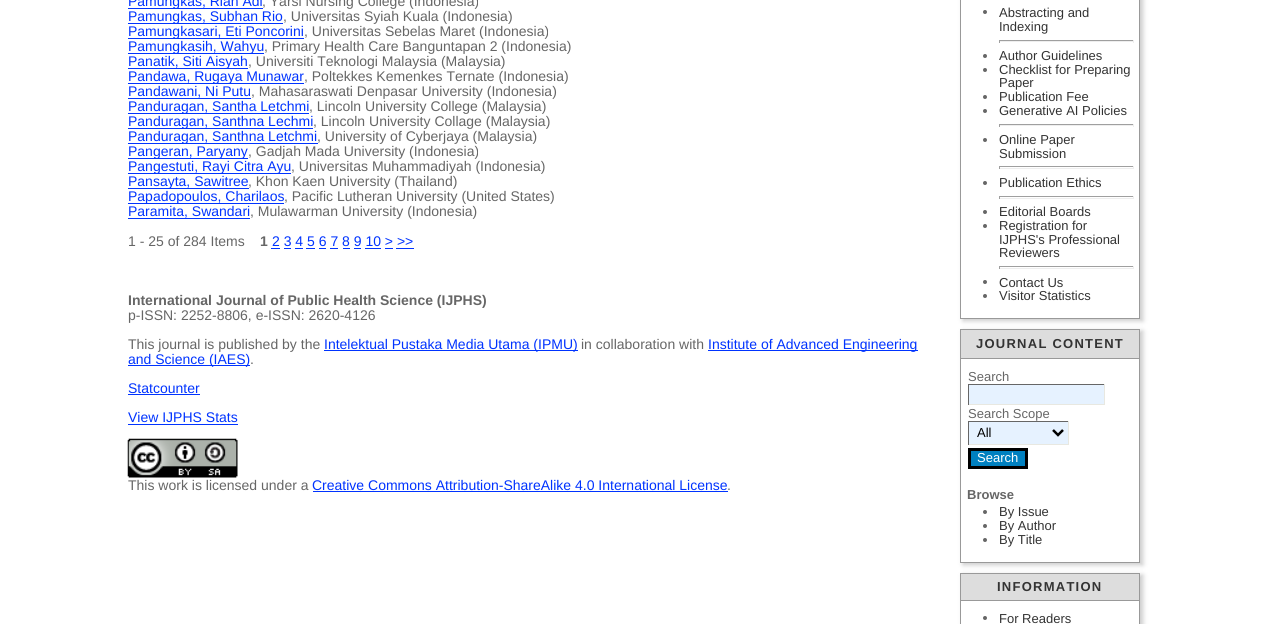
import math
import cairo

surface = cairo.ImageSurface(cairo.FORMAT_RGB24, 1279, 624)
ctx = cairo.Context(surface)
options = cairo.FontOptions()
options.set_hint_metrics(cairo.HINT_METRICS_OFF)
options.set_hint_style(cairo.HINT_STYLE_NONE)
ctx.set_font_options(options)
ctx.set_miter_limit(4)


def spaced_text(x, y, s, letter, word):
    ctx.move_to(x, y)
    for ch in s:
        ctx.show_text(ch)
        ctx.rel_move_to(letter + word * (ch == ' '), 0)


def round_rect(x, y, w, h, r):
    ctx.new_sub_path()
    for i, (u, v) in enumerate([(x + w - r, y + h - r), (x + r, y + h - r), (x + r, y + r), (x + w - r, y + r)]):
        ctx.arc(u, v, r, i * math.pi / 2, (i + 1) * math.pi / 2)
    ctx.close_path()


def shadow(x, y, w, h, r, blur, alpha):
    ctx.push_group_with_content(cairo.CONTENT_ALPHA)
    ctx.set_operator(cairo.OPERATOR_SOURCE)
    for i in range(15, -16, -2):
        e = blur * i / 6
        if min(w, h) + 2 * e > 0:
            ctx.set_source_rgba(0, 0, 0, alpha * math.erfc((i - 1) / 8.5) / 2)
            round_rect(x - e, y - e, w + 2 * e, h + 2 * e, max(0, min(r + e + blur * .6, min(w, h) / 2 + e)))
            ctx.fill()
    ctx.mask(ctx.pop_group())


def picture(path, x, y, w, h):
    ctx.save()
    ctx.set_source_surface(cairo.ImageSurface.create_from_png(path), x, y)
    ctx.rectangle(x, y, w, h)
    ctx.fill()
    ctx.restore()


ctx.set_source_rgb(1, 1, 1)
ctx.paint()
ctx.set_source_rgb(0, 0.2, 1)
ctx.rectangle(128, 8, 135, 1)
ctx.fill()
ctx.select_font_face("Liberation Sans")
ctx.set_font_size(14)
ctx.move_to(128, 6)
ctx.show_text("Pamungkas, Rian Adi")
ctx.set_source_rgb(0.4, 0.4, 0.4)
ctx.move_to(262, 6)
ctx.show_text(", Yarsi Nursing College (Indonesia)")
ctx.set_source_rgb(0, 0.2, 1)
ctx.rectangle(128, 23, 155, 1)
ctx.fill()
ctx.move_to(128, 21)
ctx.show_text("Pamungkas, Subhan Rio")
ctx.set_source_rgb(0.4, 0.4, 0.4)
ctx.move_to(283, 21)
ctx.show_text(", Universitas Syiah Kuala (Indonesia)")
ctx.set_source_rgb(0, 0.2, 1)
ctx.rectangle(128, 38, 176, 1)
ctx.fill()
ctx.move_to(128, 36)
ctx.show_text("Pamungkasari, Eti Poncorini")
ctx.set_source_rgb(0.4, 0.4, 0.4)
ctx.move_to(304, 36)
ctx.show_text(", Universitas Sebelas Maret (Indonesia)")
ctx.set_source_rgb(0, 0.2, 1)
ctx.rectangle(128, 53, 136, 1)
ctx.fill()
ctx.move_to(128, 51)
ctx.show_text("Pamungkasih, Wahyu")
ctx.set_source_rgb(0.4, 0.4, 0.4)
ctx.move_to(264, 51)
ctx.show_text(", Primary Health Care Banguntapan 2 (Indonesia)")
ctx.set_source_rgb(0, 0.2, 1)
ctx.rectangle(128, 68, 120, 1)
ctx.fill()
ctx.move_to(128, 66)
ctx.show_text("Panatik, Siti Aisyah")
ctx.set_source_rgb(0.4, 0.4, 0.4)
ctx.move_to(248, 66)
ctx.show_text(", Universiti Teknologi Malaysia (Malaysia)")
ctx.set_source_rgb(0, 0.2, 1)
ctx.rectangle(128, 83, 176, 1)
ctx.fill()
ctx.move_to(128, 81)
ctx.show_text("Pandawa, Rugaya Munawar")
ctx.set_source_rgb(0.4, 0.4, 0.4)
ctx.move_to(304, 81)
ctx.show_text(", Poltekkes Kemenkes Ternate (Indonesia)")
ctx.set_source_rgb(0, 0.2, 1)
ctx.move_to(128, 96)
ctx.show_text("Pandawani, Ni Putu")
ctx.rectangle(128, 98, 123, 1)
ctx.fill()
ctx.set_source_rgb(0.4, 0.4, 0.4)
ctx.move_to(251, 96)
ctx.show_text(", Mahasaraswati Denpasar University (Indonesia)")
ctx.set_source_rgb(0, 0.2, 1)
ctx.rectangle(128, 113, 181, 1)
ctx.fill()
ctx.move_to(128, 111)
ctx.show_text("Panduragan, Santha Letchmi")
ctx.set_source_rgb(0.4, 0.4, 0.4)
ctx.move_to(309, 111)
ctx.show_text(", Lincoln University College (Malaysia)")
ctx.set_source_rgb(0, 0.2, 1)
ctx.rectangle(128, 128, 185, 1)
ctx.fill()
ctx.move_to(128, 126)
ctx.show_text("Panduragan, Santhna Lechmi")
ctx.set_source_rgb(0.4, 0.4, 0.4)
ctx.move_to(313, 126)
ctx.show_text(", Lincoln University Collage (Malaysia)")
ctx.set_source_rgb(0, 0.2, 1)
ctx.rectangle(128, 143, 190, 1)
ctx.fill()
ctx.move_to(128, 141)
ctx.show_text("Panduragan, Santhna Letchmi")
ctx.set_source_rgb(0.4, 0.4, 0.4)
ctx.move_to(317, 141)
ctx.show_text(", University of Cyberjaya (Malaysia)")
ctx.set_source_rgb(0, 0.2, 1)
ctx.rectangle(128, 158, 120, 1)
ctx.fill()
ctx.move_to(128, 156)
ctx.show_text("Pangeran, Paryany")
ctx.set_source_rgb(0.4, 0.4, 0.4)
ctx.move_to(248, 156)
ctx.show_text(", Gadjah Mada University (Indonesia)")
ctx.set_source_rgb(0, 0.2, 1)
ctx.rectangle(128, 173, 163, 1)
ctx.fill()
ctx.move_to(128, 171)
ctx.show_text("Pangestuti, Rayi Citra Ayu")
ctx.set_source_rgb(0.4, 0.4, 0.4)
ctx.move_to(291, 171)
ctx.show_text(", Universitas Muhammadiyah (Indonesia)")
ctx.set_source_rgb(0, 0.2, 1)
ctx.rectangle(128, 188, 121, 1)
ctx.fill()
ctx.move_to(128, 186)
ctx.show_text("Pansayta, Sawitree")
ctx.set_source_rgb(0.4, 0.4, 0.4)
ctx.move_to(248, 186)
ctx.show_text(", Khon Kaen University (Thailand)")
ctx.set_source_rgb(0, 0.2, 1)
ctx.rectangle(128, 203, 156, 1)
ctx.fill()
ctx.move_to(128, 201)
ctx.show_text("Papadopoulos, Charilaos")
ctx.set_source_rgb(0.4, 0.4, 0.4)
ctx.move_to(284, 201)
ctx.show_text(", Pacific Lutheran University (United States)")
ctx.set_source_rgb(0, 0.2, 1)
ctx.move_to(128, 216)
ctx.show_text("Paramita, Swandari")
ctx.rectangle(128, 218, 122, 1)
ctx.fill()
ctx.set_source_rgb(0.4, 0.4, 0.4)
ctx.move_to(250, 216)
ctx.show_text(", Mulawarman University (Indonesia)")
ctx.move_to(128, 246)
ctx.show_text("1 - 25 of 284 Items")
ctx.select_font_face("Liberation Sans", cairo.FONT_SLANT_NORMAL, cairo.FONT_WEIGHT_BOLD)
ctx.move_to(260, 246)
ctx.show_text("1")
ctx.select_font_face("Liberation Sans")
ctx.set_source_rgb(0, 0.2, 1)
ctx.move_to(272, 246)
ctx.show_text("2 3 4 5 6 7 8 9 10 > >>")
ctx.rectangle(271, 248, 9, 1)
ctx.fill()
ctx.rectangle(284, 248, 7, 1)
ctx.fill()
ctx.rectangle(295, 248, 8, 1)
ctx.fill()
ctx.rectangle(306, 248, 9, 1)
ctx.fill()
ctx.rectangle(319, 248, 7, 1)
ctx.fill()
ctx.rectangle(330, 248, 8, 1)
ctx.fill()
ctx.rectangle(343, 248, 7, 1)
ctx.fill()
ctx.rectangle(354, 248, 7, 1)
ctx.fill()
ctx.rectangle(365, 248, 16, 1)
ctx.fill()
ctx.rectangle(385, 248, 8, 1)
ctx.fill()
ctx.rectangle(396, 248, 18, 1)
ctx.fill()
ctx.select_font_face("Liberation Sans", cairo.FONT_SLANT_NORMAL, cairo.FONT_WEIGHT_BOLD)
ctx.set_source_rgb(0.4, 0.4, 0.4)
ctx.move_to(128, 305)
ctx.show_text("International Journal of Public Health Science (IJPHS)")
ctx.select_font_face("Liberation Sans")
ctx.move_to(128, 320)
ctx.show_text("p-ISSN: 2252-8806, e-ISSN: 2620-4126")
ctx.move_to(128, 349)
ctx.show_text("This journal is published by the")
ctx.set_source_rgb(0, 0.2, 1)
ctx.rectangle(324, 350, 254, 1)
ctx.fill()
ctx.move_to(324, 349)
ctx.show_text("Intelektual Pustaka Media Utama (IPMU)")
ctx.set_source_rgb(0.4, 0.4, 0.4)
ctx.move_to(581, 349)
ctx.show_text("in collaboration with")
ctx.set_source_rgb(0, 0.2, 1)
ctx.rectangle(708, 350, 210, 1)
ctx.fill()
ctx.move_to(708, 349)
ctx.show_text("Institute of Advanced Engineering")
ctx.rectangle(128, 365, 122, 1)
ctx.fill()
ctx.move_to(128, 364)
ctx.show_text("and Science (IAES)")
ctx.set_source_rgb(0.4, 0.4, 0.4)
ctx.move_to(250, 364)
ctx.show_text(".")
ctx.set_source_rgb(0, 0.2, 1)
ctx.move_to(128, 393)
ctx.show_text("Statcounter")
ctx.rectangle(128, 394, 72, 1)
ctx.fill()
ctx.move_to(128, 422)
ctx.show_text("View IJPHS Stats")
ctx.rectangle(128, 424, 110, 1)
ctx.fill()
picture("img1.png", 127, 438, 111, 40)
ctx.set_source_rgb(0.4, 0.4, 0.4)
ctx.move_to(128, 490)
ctx.show_text("This work is licensed under a")
ctx.set_source_rgb(0, 0.2, 1)
ctx.move_to(312, 490)
ctx.show_text("Creative Commons Attribution-ShareAlike 4.0 International License")
ctx.rectangle(313, 491, 415, 1)
ctx.fill()
ctx.set_source_rgb(0.4, 0.4, 0.4)
ctx.move_to(727, 490)
ctx.show_text(".")
ctx.set_source_rgb(0.792, 0.792, 0.792)
shadow(963, -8, 180, 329, 0, 2.5, 1)
ctx.set_source_rgb(1, 1, 1)
ctx.rectangle(960.5, -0.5, 179, 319)
ctx.fill_preserve()
ctx.set_source_rgb(0.6, 0.6, 0.6)
ctx.set_line_width(1)
ctx.stroke()
ctx.set_source_rgb(0.4, 0.4, 0.4)
ctx.arc(985, 12, 2, 0, 2 * math.pi)
ctx.fill()
ctx.set_font_size(13)
ctx.set_source_rgb(0.2, 0.2, 0.2)
ctx.move_to(999, 17)
ctx.show_text("Abstracting and")
ctx.move_to(999, 31)
ctx.show_text("Indexing")
ctx.set_source_rgb(0.624, 0.624, 0.624)
ctx.rectangle(999, 40, 135, 1)
ctx.fill()
ctx.set_source_rgb(0.933, 0.933, 0.933)
ctx.rectangle(1133, 40, 1, 3)
ctx.fill()
ctx.rectangle(999, 41, 135, 1)
ctx.fill()
ctx.set_source_rgb(0.624, 0.624, 0.624)
ctx.rectangle(999, 40, 1, 3)
ctx.fill()
ctx.set_source_rgb(0.4, 0.4, 0.4)
ctx.arc(985, 56, 2, 0, 2 * math.pi)
ctx.fill()
ctx.set_source_rgb(0.2, 0.2, 0.2)
ctx.move_to(999, 60)
ctx.show_text("Author Guidelines")
ctx.set_source_rgb(0.4, 0.4, 0.4)
ctx.new_path()
ctx.arc(985, 70, 2, 0, 2 * math.pi)
ctx.fill()
ctx.set_source_rgb(0.2, 0.2, 0.2)
ctx.move_to(999, 74)
ctx.show_text("Checklist for Preparing")
ctx.move_to(999, 87)
ctx.show_text("Paper")
ctx.set_source_rgb(0.4, 0.4, 0.4)
ctx.new_path()
ctx.arc(985, 97, 2, 0, 2 * math.pi)
ctx.fill()
ctx.set_source_rgb(0.2, 0.2, 0.2)
ctx.move_to(999, 101)
ctx.show_text("Publication Fee")
ctx.set_source_rgb(0.4, 0.4, 0.4)
ctx.new_path()
ctx.arc(985, 111, 2, 0, 2 * math.pi)
ctx.fill()
ctx.set_source_rgb(0.2, 0.2, 0.2)
ctx.move_to(999, 115)
ctx.show_text("Generative AI Policies")
ctx.set_source_rgb(0.624, 0.624, 0.624)
ctx.rectangle(999, 124, 135, 1)
ctx.fill()
ctx.set_source_rgb(0.933, 0.933, 0.933)
ctx.rectangle(1133, 124, 1, 3)
ctx.fill()
ctx.rectangle(999, 125, 135, 1)
ctx.fill()
ctx.set_source_rgb(0.624, 0.624, 0.624)
ctx.rectangle(999, 124, 1, 3)
ctx.fill()
ctx.set_source_rgb(0.4, 0.4, 0.4)
ctx.arc(985, 140, 2, 0, 2 * math.pi)
ctx.fill()
ctx.set_source_rgb(0.2, 0.2, 0.2)
ctx.move_to(999, 144)
ctx.show_text("Online Paper")
ctx.move_to(999, 158)
ctx.show_text("Submission")
ctx.set_source_rgb(0.624, 0.624, 0.624)
ctx.rectangle(999, 166, 135, 1)
ctx.fill()
ctx.set_source_rgb(0.933, 0.933, 0.933)
ctx.rectangle(1133, 166, 1, 3)
ctx.fill()
ctx.rectangle(999, 168, 135, 1)
ctx.fill()
ctx.set_source_rgb(0.624, 0.624, 0.624)
ctx.rectangle(999, 166, 1, 3)
ctx.fill()
ctx.set_source_rgb(0.4, 0.4, 0.4)
ctx.arc(985, 183, 2, 0, 2 * math.pi)
ctx.fill()
ctx.set_source_rgb(0.2, 0.2, 0.2)
ctx.move_to(999, 187)
ctx.show_text("Publication Ethics")
ctx.set_source_rgb(0.624, 0.624, 0.624)
ctx.rectangle(999, 196, 135, 1)
ctx.fill()
ctx.set_source_rgb(0.933, 0.933, 0.933)
ctx.rectangle(1133, 196, 1, 3)
ctx.fill()
ctx.rectangle(999, 198, 135, 1)
ctx.fill()
ctx.set_source_rgb(0.624, 0.624, 0.624)
ctx.rectangle(999, 196, 1, 3)
ctx.fill()
ctx.set_source_rgb(0.4, 0.4, 0.4)
ctx.arc(985, 212, 2, 0, 2 * math.pi)
ctx.fill()
ctx.set_source_rgb(0.2, 0.2, 0.2)
ctx.move_to(999, 216)
ctx.show_text("Editorial Boards")
ctx.set_source_rgb(0.4, 0.4, 0.4)
ctx.new_path()
ctx.arc(985, 226, 2, 0, 2 * math.pi)
ctx.fill()
ctx.set_source_rgb(0.2, 0.2, 0.2)
ctx.move_to(999, 230)
ctx.show_text("Registration for")
ctx.move_to(999, 244)
ctx.show_text("IJPHS's Professional")
ctx.move_to(999, 257)
ctx.show_text("Reviewers")
ctx.set_source_rgb(0.624, 0.624, 0.624)
ctx.rectangle(999, 266, 135, 1)
ctx.fill()
ctx.set_source_rgb(0.933, 0.933, 0.933)
ctx.rectangle(1133, 266, 1, 3)
ctx.fill()
ctx.rectangle(999, 268, 135, 1)
ctx.fill()
ctx.set_source_rgb(0.624, 0.624, 0.624)
ctx.rectangle(999, 266, 1, 3)
ctx.fill()
ctx.set_source_rgb(0.4, 0.4, 0.4)
ctx.arc(985, 282, 2, 0, 2 * math.pi)
ctx.fill()
ctx.set_source_rgb(0.2, 0.2, 0.2)
ctx.move_to(999, 287)
ctx.show_text("Contact Us")
ctx.set_source_rgb(0.4, 0.4, 0.4)
ctx.new_path()
ctx.arc(985, 296, 2, 0, 2 * math.pi)
ctx.fill()
ctx.set_source_rgb(0.2, 0.2, 0.2)
ctx.move_to(999, 300)
ctx.show_text("Visitor Statistics")
ctx.set_source_rgb(0.792, 0.792, 0.792)
shadow(963, 331, 180, 234, 0, 2.5, 1)
ctx.set_source_rgb(1, 1, 1)
ctx.rectangle(961, 359, 178, 203)
ctx.fill()
ctx.rectangle(960.5, 329.5, 179, 233)
ctx.set_source_rgb(0.6, 0.6, 0.6)
ctx.stroke()
ctx.set_source_rgb(0.867, 0.867, 0.867)
ctx.rectangle(961, 330, 178, 28)
ctx.fill()
ctx.set_source_rgb(0.6, 0.6, 0.6)
ctx.rectangle(961, 358, 178, 1)
ctx.fill()
ctx.select_font_face("Liberation Sans", cairo.FONT_SLANT_NORMAL, cairo.FONT_WEIGHT_BOLD)
ctx.set_source_rgb(0.2, 0.2, 0.2)
spaced_text(976, 348, "JOURNAL CONTENT", 1.25, 0)
ctx.select_font_face("Liberation Sans")
ctx.set_source_rgb(0.4, 0.4, 0.4)
ctx.move_to(968, 381)
ctx.show_text("Search")
ctx.set_source_rgb(0.902, 0.949, 1)
ctx.rectangle(969, 385, 135, 19)
ctx.fill()
ctx.set_source_rgb(0.4, 0.4, 0.4)
ctx.rectangle(968, 384, 137, 1)
ctx.fill()
ctx.set_source_rgb(0.91, 0.91, 0.882)
ctx.rectangle(1104, 384, 1, 21)
ctx.fill()
ctx.rectangle(968, 404, 137, 1)
ctx.fill()
ctx.set_source_rgb(0.4, 0.4, 0.4)
ctx.rectangle(968, 384, 1, 21)
ctx.fill()
ctx.move_to(968, 418)
ctx.show_text("Search Scope")
ctx.set_source_rgb(0.902, 0.949, 1)
ctx.rectangle(969, 422, 99, 22)
ctx.fill()
ctx.set_source_rgb(0.4, 0.4, 0.4)
ctx.rectangle(968, 421, 101, 1)
ctx.fill()
ctx.set_source_rgb(0.91, 0.91, 0.882)
ctx.rectangle(1068, 421, 1, 24)
ctx.fill()
ctx.rectangle(968, 444, 101, 1)
ctx.fill()
ctx.set_source_rgb(0.4, 0.4, 0.4)
ctx.rectangle(968, 421, 1, 24)
ctx.fill()
ctx.new_path()
ctx.move_to(1053, 430)
ctx.line_to(1058, 435)
ctx.line_to(1063, 430)
ctx.set_source_rgb(0, 0, 0)
ctx.set_line_width(2.5)
ctx.stroke()
ctx.move_to(977, 437)
ctx.show_text("All")
ctx.set_source_rgb(0, 0.502, 0.753)
ctx.rectangle(969.5, 449.5, 57, 18)
ctx.fill_preserve()
ctx.set_source_rgb(0, 0, 0)
ctx.set_line_width(3)
ctx.stroke()
ctx.set_source_rgb(1, 1, 1)
ctx.move_to(977, 462)
ctx.show_text("Search")
ctx.select_font_face("Liberation Sans", cairo.FONT_SLANT_NORMAL, cairo.FONT_WEIGHT_BOLD)
ctx.set_source_rgb(0.4, 0.4, 0.4)
ctx.move_to(967, 499)
ctx.show_text("Browse")
ctx.new_path()
ctx.arc(985, 512, 2, 0, 2 * math.pi)
ctx.fill()
ctx.select_font_face("Liberation Sans")
ctx.set_source_rgb(0.2, 0.2, 0.2)
ctx.move_to(999, 516)
ctx.show_text("By Issue")
ctx.set_source_rgb(0.4, 0.4, 0.4)
ctx.new_path()
ctx.arc(985, 526, 2, 0, 2 * math.pi)
ctx.fill()
ctx.set_source_rgb(0.2, 0.2, 0.2)
ctx.move_to(999, 530)
ctx.show_text("By Author")
ctx.set_source_rgb(0.4, 0.4, 0.4)
ctx.new_path()
ctx.arc(985, 540, 2, 0, 2 * math.pi)
ctx.fill()
ctx.set_source_rgb(0.2, 0.2, 0.2)
ctx.move_to(999, 544)
ctx.show_text("By Title")
ctx.save()
ctx.set_fill_rule(cairo.FILL_RULE_EVEN_ODD)
ctx.new_path()
ctx.move_to(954, 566)
ctx.line_to(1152, 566)
ctx.line_to(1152, 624)
ctx.line_to(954, 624)
ctx.close_path()
ctx.move_to(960, 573)
ctx.line_to(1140, 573)
ctx.line_to(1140, 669)
ctx.line_to(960, 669)
ctx.close_path()
ctx.clip()
ctx.set_source_rgb(0.792, 0.792, 0.792)
shadow(963, 575, 180, 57, 0, 2.5, 1)
ctx.restore()
ctx.rectangle(960.5, 573.5, 179, 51)
ctx.set_source_rgb(0.6, 0.6, 0.6)
ctx.set_line_width(1)
ctx.stroke()
ctx.set_source_rgb(0.867, 0.867, 0.867)
ctx.rectangle(961, 574, 178, 26)
ctx.fill()
ctx.set_source_rgb(0.6, 0.6, 0.6)
ctx.rectangle(961, 600, 178, 1)
ctx.fill()
ctx.select_font_face("Liberation Sans", cairo.FONT_SLANT_NORMAL, cairo.FONT_WEIGHT_BOLD)
ctx.set_source_rgb(0.2, 0.2, 0.2)
spaced_text(997, 591, "INFORMATION", 1.25, 0)
ctx.set_source_rgb(0.4, 0.4, 0.4)
ctx.new_path()
ctx.arc(985, 618, 2, 0, 2 * math.pi)
ctx.fill()
ctx.select_font_face("Liberation Sans")
ctx.set_source_rgb(0.2, 0.2, 0.2)
ctx.move_to(999, 623)
ctx.show_text("For Readers")
surface.write_to_png("page.png")
